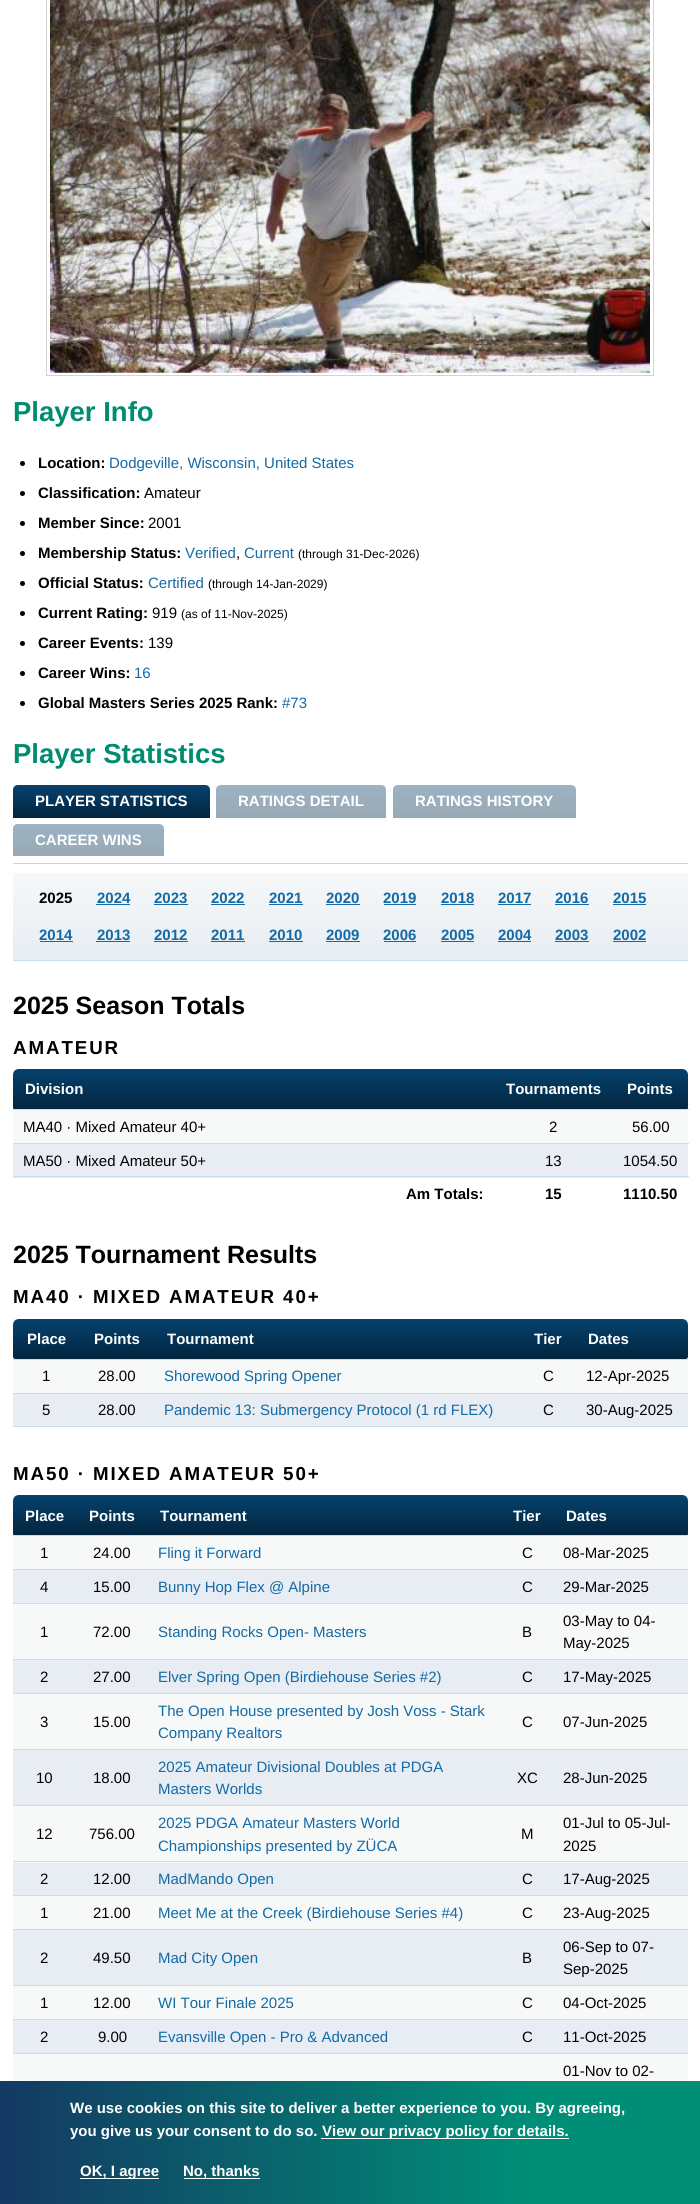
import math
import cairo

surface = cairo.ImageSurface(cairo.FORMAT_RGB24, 700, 2204)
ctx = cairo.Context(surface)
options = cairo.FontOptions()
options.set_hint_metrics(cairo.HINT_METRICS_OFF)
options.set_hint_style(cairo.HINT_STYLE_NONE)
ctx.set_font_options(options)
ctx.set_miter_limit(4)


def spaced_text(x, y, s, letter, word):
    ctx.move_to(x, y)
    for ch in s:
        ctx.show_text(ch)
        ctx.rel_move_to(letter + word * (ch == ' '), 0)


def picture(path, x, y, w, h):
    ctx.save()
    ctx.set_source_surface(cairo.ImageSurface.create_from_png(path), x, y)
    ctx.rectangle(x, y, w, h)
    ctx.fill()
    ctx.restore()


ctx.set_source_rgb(1, 1, 1)
ctx.paint()
ctx.rectangle(46.5, -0.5, 607, 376)
ctx.set_source_rgb(0.827, 0.827, 0.827)
ctx.set_line_width(1)
ctx.stroke()
picture("img1.png", 50, 0, 600, 373)
ctx.select_font_face("Liberation Sans", cairo.FONT_SLANT_NORMAL, cairo.FONT_WEIGHT_BOLD)
ctx.set_font_size(27.5)
ctx.set_source_rgb(0, 0.553, 0.435)
ctx.move_to(13, 421)
ctx.show_text("Player Info")
ctx.set_source_rgb(0, 0, 0)
ctx.new_path()
ctx.arc(22.5, 463.5, 2.5, 0, 2 * math.pi)
ctx.fill()
ctx.set_font_size(15)
ctx.move_to(38, 468)
ctx.show_text("Location:")
ctx.select_font_face("Liberation Sans")
ctx.set_source_rgb(0.075, 0.416, 0.651)
ctx.move_to(109, 468)
ctx.show_text("Dodgeville, Wisconsin, United States")
ctx.set_source_rgb(0, 0, 0)
ctx.new_path()
ctx.arc(22.5, 493.5, 2.5, 0, 2 * math.pi)
ctx.fill()
ctx.select_font_face("Liberation Sans", cairo.FONT_SLANT_NORMAL, cairo.FONT_WEIGHT_BOLD)
ctx.move_to(38, 498)
ctx.show_text("Classification:")
ctx.select_font_face("Liberation Sans")
ctx.move_to(144, 498)
ctx.show_text("Amateur")
ctx.new_path()
ctx.arc(22.5, 523.5, 2.5, 0, 2 * math.pi)
ctx.fill()
ctx.select_font_face("Liberation Sans", cairo.FONT_SLANT_NORMAL, cairo.FONT_WEIGHT_BOLD)
ctx.move_to(38, 528)
ctx.show_text("Member Since:")
ctx.select_font_face("Liberation Sans")
ctx.move_to(148, 528)
ctx.show_text("2001")
ctx.new_path()
ctx.arc(22.5, 553.5, 2.5, 0, 2 * math.pi)
ctx.fill()
ctx.select_font_face("Liberation Sans", cairo.FONT_SLANT_NORMAL, cairo.FONT_WEIGHT_BOLD)
ctx.move_to(38, 558)
ctx.show_text("Membership Status:")
ctx.select_font_face("Liberation Sans")
ctx.set_source_rgb(0.075, 0.416, 0.651)
ctx.move_to(185, 558)
ctx.show_text("Verified")
ctx.move_to(244, 558)
ctx.show_text("Current")
ctx.set_font_size(12)
ctx.set_source_rgb(0, 0, 0)
ctx.move_to(298, 558)
ctx.show_text("(through 31-Dec-2026)")
ctx.set_font_size(15)
ctx.move_to(236, 558)
ctx.show_text(",")
ctx.new_path()
ctx.arc(22.5, 583.5, 2.5, 0, 2 * math.pi)
ctx.fill()
ctx.select_font_face("Liberation Sans", cairo.FONT_SLANT_NORMAL, cairo.FONT_WEIGHT_BOLD)
ctx.move_to(38, 588)
ctx.show_text("Official Status:")
ctx.select_font_face("Liberation Sans")
ctx.set_source_rgb(0.075, 0.416, 0.651)
ctx.move_to(148, 588)
ctx.show_text("Certified")
ctx.set_font_size(12)
ctx.set_source_rgb(0, 0, 0)
ctx.move_to(208, 588)
ctx.show_text("(through 14-Jan-2029)")
ctx.new_path()
ctx.arc(22.5, 613.5, 2.5, 0, 2 * math.pi)
ctx.fill()
ctx.select_font_face("Liberation Sans", cairo.FONT_SLANT_NORMAL, cairo.FONT_WEIGHT_BOLD)
ctx.set_font_size(15)
ctx.move_to(38, 618)
ctx.show_text("Current Rating:")
ctx.select_font_face("Liberation Sans")
ctx.move_to(152, 618)
ctx.show_text("919")
ctx.set_font_size(12)
ctx.move_to(181, 618)
ctx.show_text("(as of 11-Nov-2025)")
ctx.new_path()
ctx.arc(22.5, 643.5, 2.5, 0, 2 * math.pi)
ctx.fill()
ctx.select_font_face("Liberation Sans", cairo.FONT_SLANT_NORMAL, cairo.FONT_WEIGHT_BOLD)
ctx.set_font_size(15)
ctx.move_to(38, 648)
ctx.show_text("Career Events:")
ctx.select_font_face("Liberation Sans")
ctx.move_to(148, 648)
ctx.show_text("139")
ctx.new_path()
ctx.arc(22.5, 673.5, 2.5, 0, 2 * math.pi)
ctx.fill()
ctx.select_font_face("Liberation Sans", cairo.FONT_SLANT_NORMAL, cairo.FONT_WEIGHT_BOLD)
ctx.move_to(38, 678)
ctx.show_text("Career Wins:")
ctx.select_font_face("Liberation Sans")
ctx.set_source_rgb(0.075, 0.416, 0.651)
ctx.move_to(134, 678)
ctx.show_text("16")
ctx.set_source_rgb(0, 0, 0)
ctx.new_path()
ctx.arc(22.5, 703.5, 2.5, 0, 2 * math.pi)
ctx.fill()
ctx.select_font_face("Liberation Sans", cairo.FONT_SLANT_NORMAL, cairo.FONT_WEIGHT_BOLD)
ctx.move_to(38, 708)
ctx.show_text("Global Masters Series 2025 Rank:")
ctx.select_font_face("Liberation Sans")
ctx.set_source_rgb(0.075, 0.416, 0.651)
ctx.move_to(282, 708)
ctx.show_text("#73")
ctx.select_font_face("Liberation Sans", cairo.FONT_SLANT_NORMAL, cairo.FONT_WEIGHT_BOLD)
ctx.set_font_size(27.5)
ctx.set_source_rgb(0, 0.553, 0.435)
ctx.move_to(13, 763)
ctx.show_text("Player Statistics")
ctx.set_source_rgb(0.827, 0.827, 0.827)
ctx.rectangle(13, 863, 675, 1)
ctx.fill()
gradient = cairo.LinearGradient(111, 785, 111, 818)
gradient.add_color_stop_rgba(0, 0.02, 0.259, 0.431, 1)
gradient.add_color_stop_rgba(1, 0.012, 0.145, 0.243, 1)
ctx.set_source(gradient)
ctx.new_path()
ctx.move_to(18, 785)
ctx.line_to(205, 785)
ctx.curve_to(208, 785, 210, 787, 210, 790)
ctx.line_to(210, 818)
ctx.line_to(13, 818)
ctx.line_to(13, 790)
ctx.curve_to(13, 787, 15, 785, 18, 785)
ctx.close_path()
ctx.fill()
ctx.set_font_size(15)
ctx.set_source_rgb(1, 1, 1)
ctx.move_to(35, 806)
ctx.show_text("PLAYER STATISTICS")
gradient = cairo.LinearGradient(301, 785, 301, 818)
gradient.add_color_stop_rgba(0, 0.608, 0.702, 0.773, 1)
gradient.add_color_stop_rgba(1, 0.6, 0.663, 0.702, 1)
ctx.set_source(gradient)
ctx.new_path()
ctx.move_to(221, 785)
ctx.line_to(381, 785)
ctx.curve_to(384, 785, 386, 787, 386, 790)
ctx.line_to(386, 818)
ctx.line_to(216, 818)
ctx.line_to(216, 790)
ctx.curve_to(216, 787, 218, 785, 221, 785)
ctx.close_path()
ctx.fill()
ctx.set_source_rgb(1, 1, 1)
ctx.move_to(238, 806)
ctx.show_text("RATINGS DETAIL")
gradient = cairo.LinearGradient(484, 785, 484, 818)
gradient.add_color_stop_rgba(0, 0.608, 0.702, 0.773, 1)
gradient.add_color_stop_rgba(1, 0.6, 0.663, 0.702, 1)
ctx.set_source(gradient)
ctx.new_path()
ctx.move_to(398, 785)
ctx.line_to(571, 785)
ctx.curve_to(574, 785, 576, 787, 576, 790)
ctx.line_to(576, 818)
ctx.line_to(393, 818)
ctx.line_to(393, 790)
ctx.curve_to(393, 787, 395, 785, 398, 785)
ctx.close_path()
ctx.fill()
ctx.set_source_rgb(1, 1, 1)
ctx.move_to(415, 806)
ctx.show_text("RATINGS HISTORY")
gradient = cairo.LinearGradient(88, 824, 88, 856)
gradient.add_color_stop_rgba(0, 0.608, 0.702, 0.773, 1)
gradient.add_color_stop_rgba(1, 0.6, 0.663, 0.702, 1)
ctx.set_source(gradient)
ctx.new_path()
ctx.move_to(18, 824)
ctx.line_to(159, 824)
ctx.curve_to(162, 824, 164, 826, 164, 829)
ctx.line_to(164, 856)
ctx.line_to(13, 856)
ctx.line_to(13, 829)
ctx.curve_to(13, 826, 15, 824, 18, 824)
ctx.close_path()
ctx.fill()
ctx.set_source_rgb(1, 1, 1)
ctx.move_to(35, 845)
ctx.show_text("CAREER WINS")
gradient = cairo.LinearGradient(350, 873, 350, 960)
gradient.add_color_stop_rgba(0, 0.965, 0.973, 0.976, 1)
gradient.add_color_stop_rgba(1, 0.906, 0.929, 0.953, 1)
ctx.set_source(gradient)
ctx.rectangle(13, 873, 675, 87)
ctx.fill()
ctx.set_source_rgb(0.804, 0.863, 0.918)
ctx.rectangle(13, 960, 675, 1)
ctx.fill()
ctx.set_source_rgb(0, 0, 0)
ctx.move_to(39, 903)
ctx.show_text("2025")
ctx.set_source_rgb(0.075, 0.416, 0.651)
ctx.move_to(97, 903)
ctx.show_text("2024")
ctx.rectangle(96, 904, 34, 1)
ctx.fill()
ctx.move_to(154, 903)
ctx.show_text("2023")
ctx.rectangle(154, 904, 34, 1)
ctx.fill()
ctx.move_to(211, 903)
ctx.show_text("2022")
ctx.rectangle(211, 904, 34, 1)
ctx.fill()
ctx.move_to(269, 903)
ctx.show_text("2021")
ctx.rectangle(269, 904, 34, 1)
ctx.fill()
ctx.move_to(326, 903)
ctx.show_text("2020")
ctx.rectangle(326, 904, 34, 1)
ctx.fill()
ctx.move_to(383, 903)
ctx.show_text("2019")
ctx.rectangle(384, 904, 32, 1)
ctx.fill()
ctx.move_to(441, 903)
ctx.show_text("2018")
ctx.rectangle(441, 904, 33, 1)
ctx.fill()
ctx.move_to(498, 903)
ctx.show_text("2017")
ctx.rectangle(498, 904, 33, 1)
ctx.fill()
ctx.move_to(555, 903)
ctx.show_text("2016")
ctx.rectangle(555, 904, 34, 1)
ctx.fill()
ctx.move_to(613, 903)
ctx.show_text("2015")
ctx.rectangle(613, 904, 33, 1)
ctx.fill()
ctx.move_to(39, 940)
ctx.show_text("2014")
ctx.rectangle(40, 941, 33, 1)
ctx.fill()
ctx.move_to(97, 940)
ctx.show_text("2013")
ctx.rectangle(96, 941, 34, 1)
ctx.fill()
ctx.move_to(154, 940)
ctx.show_text("2012")
ctx.rectangle(154, 941, 34, 1)
ctx.fill()
ctx.move_to(211, 940)
ctx.show_text("2011")
ctx.rectangle(211, 941, 34, 1)
ctx.fill()
ctx.move_to(269, 940)
ctx.show_text("2010")
ctx.rectangle(269, 941, 34, 1)
ctx.fill()
ctx.move_to(326, 940)
ctx.show_text("2009")
ctx.rectangle(326, 941, 34, 1)
ctx.fill()
ctx.move_to(383, 940)
ctx.show_text("2006")
ctx.rectangle(384, 941, 32, 1)
ctx.fill()
ctx.move_to(441, 940)
ctx.show_text("2005")
ctx.rectangle(441, 941, 33, 1)
ctx.fill()
ctx.move_to(498, 940)
ctx.show_text("2004")
ctx.rectangle(498, 941, 33, 1)
ctx.fill()
ctx.move_to(555, 940)
ctx.show_text("2003")
ctx.rectangle(555, 941, 34, 1)
ctx.fill()
ctx.move_to(613, 940)
ctx.show_text("2002")
ctx.rectangle(613, 941, 33, 1)
ctx.fill()
ctx.set_font_size(25)
ctx.set_source_rgb(0, 0, 0)
ctx.move_to(13, 1014)
ctx.show_text("2025 Season Totals")
ctx.set_font_size(18.75)
spaced_text(13, 1054, "AMATEUR", 1.9, 0)
ctx.set_source_rgb(0.965, 0.973, 0.976)
ctx.rectangle(13, 1069, 675, 40)
ctx.fill()
gradient = cairo.LinearGradient(13, 1069, 13, 1110)
gradient.add_color_stop_rgba(0, 0.02, 0.259, 0.431, 1)
gradient.add_color_stop_rgba(1, 0.012, 0.145, 0.243, 1)
ctx.set_source(gradient)
ctx.new_path()
ctx.move_to(19, 1069)
ctx.line_to(494, 1069)
ctx.line_to(494, 1110)
ctx.line_to(15.5, 1110)
ctx.curve_to(14, 1110, 13, 1109, 13, 1107.5)
ctx.line_to(13, 1075)
ctx.curve_to(13, 1071.5, 15.5, 1069, 19, 1069)
ctx.close_path()
ctx.fill()
gradient = cairo.LinearGradient(614, 1069, 614, 1110)
gradient.add_color_stop_rgba(0, 0.02, 0.259, 0.431, 1)
gradient.add_color_stop_rgba(1, 0.012, 0.145, 0.243, 1)
ctx.set_source(gradient)
ctx.new_path()
ctx.move_to(614, 1069)
ctx.line_to(682, 1069)
ctx.curve_to(685.5, 1069, 688, 1071.5, 688, 1075)
ctx.line_to(688, 1107.5)
ctx.curve_to(688, 1109, 687, 1110, 685.5, 1110)
ctx.line_to(614, 1110)
ctx.close_path()
ctx.fill()
ctx.set_source_rgb(0.804, 0.863, 0.918)
ctx.rectangle(13, 1109, 676, 1)
ctx.fill()
ctx.set_font_size(15)
ctx.set_source_rgb(1, 1, 1)
ctx.move_to(25, 1094)
ctx.show_text("Division")
gradient = cairo.LinearGradient(494, 1069, 494, 1110)
gradient.add_color_stop_rgba(0, 0.02, 0.259, 0.431, 1)
gradient.add_color_stop_rgba(1, 0.012, 0.145, 0.243, 1)
ctx.set_source(gradient)
ctx.rectangle(494, 1069, 120, 40)
ctx.fill()
ctx.set_source_rgb(1, 1, 1)
ctx.move_to(506, 1094)
ctx.show_text("Tournaments")
ctx.move_to(627, 1094)
ctx.show_text("Points")
ctx.set_source_rgb(0.965, 0.973, 0.976)
ctx.rectangle(13, 1110, 675, 33)
ctx.fill()
ctx.set_source_rgb(0.804, 0.863, 0.918)
ctx.rectangle(13, 1143, 676, 1)
ctx.fill()
ctx.select_font_face("Liberation Sans")
ctx.set_source_rgb(0, 0, 0)
ctx.move_to(23, 1132)
ctx.show_text("MA40 · Mixed Amateur 40+")
ctx.move_to(549, 1132)
ctx.show_text("2")
ctx.move_to(632, 1132)
ctx.show_text("56.00")
ctx.set_source_rgb(0.906, 0.929, 0.953)
ctx.rectangle(13, 1144, 675, 34)
ctx.fill()
ctx.set_source_rgb(0.804, 0.863, 0.918)
ctx.rectangle(13, 1176, 676, 1)
ctx.fill()
ctx.set_source_rgb(0, 0, 0)
ctx.move_to(23, 1166)
ctx.show_text("MA50 · Mixed Amateur 50+")
ctx.move_to(545, 1166)
ctx.show_text("13")
ctx.move_to(623, 1166)
ctx.show_text("1054.50")
ctx.select_font_face("Liberation Sans", cairo.FONT_SLANT_NORMAL, cairo.FONT_WEIGHT_BOLD)
ctx.move_to(406, 1199)
ctx.show_text("Am Totals:")
ctx.move_to(545, 1199)
ctx.show_text("15")
ctx.move_to(623, 1199)
ctx.show_text("1110.50")
ctx.set_font_size(25)
ctx.move_to(13, 1263)
ctx.show_text("2025 Tournament Results")
ctx.set_font_size(18.75)
spaced_text(13, 1303, "MA40 · MIXED AMATEUR 40+", 1.9, 0)
ctx.set_source_rgb(0.965, 0.973, 0.976)
ctx.rectangle(13, 1319, 675, 40)
ctx.fill()
ctx.set_source_rgb(0.804, 0.863, 0.918)
ctx.rectangle(13, 1359, 675, 1)
ctx.fill()
gradient = cairo.LinearGradient(13, 1319, 13, 1359)
gradient.add_color_stop_rgba(0, 0.02, 0.259, 0.431, 1)
gradient.add_color_stop_rgba(1, 0.012, 0.145, 0.243, 1)
ctx.set_source(gradient)
ctx.new_path()
ctx.move_to(19, 1319)
ctx.line_to(80, 1319)
ctx.line_to(80, 1359)
ctx.line_to(15.5, 1359)
ctx.curve_to(14, 1359, 13, 1358, 13, 1356.5)
ctx.line_to(13, 1325)
ctx.curve_to(13, 1321.5, 15.5, 1319, 19, 1319)
ctx.close_path()
ctx.fill()
ctx.set_font_size(15)
ctx.set_source_rgb(1, 1, 1)
ctx.move_to(27, 1344)
ctx.show_text("Place")
gradient = cairo.LinearGradient(80, 1319, 80, 1359)
gradient.add_color_stop_rgba(0, 0.02, 0.259, 0.431, 1)
gradient.add_color_stop_rgba(1, 0.012, 0.145, 0.243, 1)
ctx.set_source(gradient)
ctx.rectangle(80, 1319, 74, 40)
ctx.fill()
ctx.set_source_rgb(1, 1, 1)
ctx.move_to(94, 1344)
ctx.show_text("Points")
gradient = cairo.LinearGradient(154, 1319, 154, 1359)
gradient.add_color_stop_rgba(0, 0.02, 0.259, 0.431, 1)
gradient.add_color_stop_rgba(1, 0.012, 0.145, 0.243, 1)
ctx.set_source(gradient)
ctx.rectangle(154, 1319, 366, 40)
ctx.fill()
ctx.set_source_rgb(1, 1, 1)
ctx.move_to(167, 1344)
ctx.show_text("Tournament")
gradient = cairo.LinearGradient(520, 1319, 520, 1359)
gradient.add_color_stop_rgba(0, 0.02, 0.259, 0.431, 1)
gradient.add_color_stop_rgba(1, 0.012, 0.145, 0.243, 1)
ctx.set_source(gradient)
ctx.rectangle(520, 1319, 55, 40)
ctx.fill()
ctx.set_source_rgb(1, 1, 1)
ctx.move_to(534, 1344)
ctx.show_text("Tier")
gradient = cairo.LinearGradient(575, 1319, 575, 1359)
gradient.add_color_stop_rgba(0, 0.02, 0.259, 0.431, 1)
gradient.add_color_stop_rgba(1, 0.012, 0.145, 0.243, 1)
ctx.set_source(gradient)
ctx.new_path()
ctx.move_to(575, 1319)
ctx.line_to(682, 1319)
ctx.curve_to(685.5, 1319, 688, 1321.5, 688, 1325)
ctx.line_to(688, 1356.5)
ctx.curve_to(688, 1358, 687, 1359, 685.5, 1359)
ctx.line_to(575, 1359)
ctx.close_path()
ctx.fill()
ctx.set_source_rgb(1, 1, 1)
ctx.move_to(588, 1344)
ctx.show_text("Dates")
ctx.set_source_rgb(0.965, 0.973, 0.976)
ctx.rectangle(13, 1360, 675, 33)
ctx.fill()
ctx.set_source_rgb(0.804, 0.863, 0.918)
ctx.rectangle(13, 1393, 675, 1)
ctx.fill()
ctx.select_font_face("Liberation Sans")
ctx.set_source_rgb(0, 0, 0)
ctx.move_to(42, 1381)
ctx.show_text("1")
ctx.move_to(98, 1381)
ctx.show_text("28.00")
ctx.set_source_rgb(0.075, 0.416, 0.651)
ctx.move_to(164, 1381)
ctx.show_text("Shorewood Spring Opener")
ctx.set_source_rgb(0, 0, 0)
ctx.move_to(543, 1381)
ctx.show_text("C")
ctx.move_to(586, 1381)
ctx.show_text("12-Apr-2025")
ctx.set_source_rgb(0.804, 0.863, 0.918)
ctx.rectangle(13, 1426, 675, 1)
ctx.fill()
ctx.set_source_rgb(0.906, 0.929, 0.953)
ctx.rectangle(13, 1394, 675, 32)
ctx.fill()
ctx.set_source_rgb(0, 0, 0)
ctx.move_to(42, 1415)
ctx.show_text("5")
ctx.move_to(98, 1415)
ctx.show_text("28.00")
ctx.set_source_rgb(0.075, 0.416, 0.651)
ctx.move_to(164, 1415)
ctx.show_text("Pandemic 13: Submergency Protocol (1 rd FLEX)")
ctx.set_source_rgb(0, 0, 0)
ctx.move_to(543, 1415)
ctx.show_text("C")
ctx.move_to(586, 1415)
ctx.show_text("30-Aug-2025")
ctx.select_font_face("Liberation Sans", cairo.FONT_SLANT_NORMAL, cairo.FONT_WEIGHT_BOLD)
ctx.set_font_size(18.75)
spaced_text(13, 1480, "MA50 · MIXED AMATEUR 50+", 1.9, 0)
ctx.set_source_rgb(0.965, 0.973, 0.976)
ctx.rectangle(13, 1495, 675, 40)
ctx.fill()
gradient = cairo.LinearGradient(13, 1495, 13, 1536)
gradient.add_color_stop_rgba(0, 0.02, 0.259, 0.431, 1)
gradient.add_color_stop_rgba(1, 0.012, 0.145, 0.243, 1)
ctx.set_source(gradient)
ctx.new_path()
ctx.move_to(19, 1495)
ctx.line_to(76, 1495)
ctx.line_to(76, 1536)
ctx.line_to(15.5, 1536)
ctx.curve_to(14, 1536, 13, 1535, 13, 1533.5)
ctx.line_to(13, 1501)
ctx.curve_to(13, 1497.5, 15.5, 1495, 19, 1495)
ctx.close_path()
ctx.fill()
gradient = cairo.LinearGradient(554, 1495, 554, 1536)
gradient.add_color_stop_rgba(0, 0.02, 0.259, 0.431, 1)
gradient.add_color_stop_rgba(1, 0.012, 0.145, 0.243, 1)
ctx.set_source(gradient)
ctx.new_path()
ctx.move_to(554, 1495)
ctx.line_to(682, 1495)
ctx.curve_to(685.5, 1495, 688, 1497.5, 688, 1501)
ctx.line_to(688, 1533.5)
ctx.curve_to(688, 1535, 687, 1536, 685.5, 1536)
ctx.line_to(554, 1536)
ctx.close_path()
ctx.fill()
ctx.set_source_rgb(0.804, 0.863, 0.918)
ctx.rectangle(13, 1535, 675, 1)
ctx.fill()
ctx.set_font_size(15)
ctx.set_source_rgb(1, 1, 1)
ctx.move_to(25, 1521)
ctx.show_text("Place")
gradient = cairo.LinearGradient(76, 1495, 76, 1536)
gradient.add_color_stop_rgba(0, 0.02, 0.259, 0.431, 1)
gradient.add_color_stop_rgba(1, 0.012, 0.145, 0.243, 1)
ctx.set_source(gradient)
ctx.rectangle(76, 1495, 72, 40)
ctx.fill()
ctx.set_source_rgb(1, 1, 1)
ctx.move_to(89, 1521)
ctx.show_text("Points")
gradient = cairo.LinearGradient(148, 1495, 148, 1536)
gradient.add_color_stop_rgba(0, 0.02, 0.259, 0.431, 1)
gradient.add_color_stop_rgba(1, 0.012, 0.145, 0.243, 1)
ctx.set_source(gradient)
ctx.rectangle(148, 1495, 353, 40)
ctx.fill()
ctx.set_source_rgb(1, 1, 1)
ctx.move_to(160, 1521)
ctx.show_text("Tournament")
gradient = cairo.LinearGradient(501, 1495, 501, 1536)
gradient.add_color_stop_rgba(0, 0.02, 0.259, 0.431, 1)
gradient.add_color_stop_rgba(1, 0.012, 0.145, 0.243, 1)
ctx.set_source(gradient)
ctx.rectangle(501, 1495, 53, 40)
ctx.fill()
ctx.set_source_rgb(1, 1, 1)
ctx.move_to(513, 1521)
ctx.show_text("Tier")
ctx.move_to(566, 1521)
ctx.show_text("Dates")
ctx.set_source_rgb(0.965, 0.973, 0.976)
ctx.rectangle(13, 1536, 675, 33)
ctx.fill()
ctx.set_source_rgb(0.804, 0.863, 0.918)
ctx.rectangle(13, 1569, 675, 1)
ctx.fill()
ctx.select_font_face("Liberation Sans")
ctx.set_source_rgb(0, 0, 0)
ctx.move_to(40, 1558)
ctx.show_text("1")
ctx.move_to(93, 1558)
ctx.show_text("24.00")
ctx.set_source_rgb(0.075, 0.416, 0.651)
ctx.move_to(158, 1558)
ctx.show_text("Fling it Forward")
ctx.set_source_rgb(0, 0, 0)
ctx.move_to(522, 1558)
ctx.show_text("C")
ctx.move_to(563, 1558)
ctx.show_text("08-Mar-2025")
ctx.set_source_rgb(0.804, 0.863, 0.918)
ctx.rectangle(13, 1603, 675, 1)
ctx.fill()
ctx.set_source_rgb(0.906, 0.929, 0.953)
ctx.rectangle(13, 1570, 675, 33)
ctx.fill()
ctx.set_source_rgb(0, 0, 0)
ctx.move_to(40, 1592)
ctx.show_text("4")
ctx.move_to(93, 1592)
ctx.show_text("15.00")
ctx.set_source_rgb(0.075, 0.416, 0.651)
ctx.move_to(158, 1592)
ctx.show_text("Bunny Hop Flex @ Alpine")
ctx.set_source_rgb(0, 0, 0)
ctx.move_to(522, 1592)
ctx.show_text("C")
ctx.move_to(563, 1592)
ctx.show_text("29-Mar-2025")
ctx.set_source_rgb(0.965, 0.973, 0.976)
ctx.rectangle(13, 1604, 675, 55)
ctx.fill()
ctx.set_source_rgb(0.804, 0.863, 0.918)
ctx.rectangle(13, 1659, 675, 1)
ctx.fill()
ctx.set_source_rgb(0, 0, 0)
ctx.move_to(40, 1637)
ctx.show_text("1")
ctx.move_to(93, 1637)
ctx.show_text("72.00")
ctx.set_source_rgb(0.075, 0.416, 0.651)
ctx.move_to(158, 1637)
ctx.show_text("Standing Rocks Open- Masters")
ctx.set_source_rgb(0, 0, 0)
ctx.move_to(522, 1637)
ctx.show_text("B")
ctx.move_to(563, 1626)
ctx.show_text("03-May to 04-")
ctx.move_to(563, 1648)
ctx.show_text("May-2025")
ctx.set_source_rgb(0.804, 0.863, 0.918)
ctx.rectangle(13, 1693, 675, 1)
ctx.fill()
ctx.set_source_rgb(0.906, 0.929, 0.953)
ctx.rectangle(13, 1660, 675, 33)
ctx.fill()
ctx.set_source_rgb(0, 0, 0)
ctx.move_to(40, 1682)
ctx.show_text("2")
ctx.move_to(93, 1682)
ctx.show_text("27.00")
ctx.set_source_rgb(0.075, 0.416, 0.651)
ctx.move_to(158, 1682)
ctx.show_text("Elver Spring Open (Birdiehouse Series #2)")
ctx.set_source_rgb(0, 0, 0)
ctx.move_to(522, 1682)
ctx.show_text("C")
ctx.move_to(563, 1682)
ctx.show_text("17-May-2025")
ctx.set_source_rgb(0.965, 0.973, 0.976)
ctx.rectangle(13, 1694, 675, 55)
ctx.fill()
ctx.set_source_rgb(0.804, 0.863, 0.918)
ctx.rectangle(13, 1749, 675, 1)
ctx.fill()
ctx.set_source_rgb(0, 0, 0)
ctx.move_to(40, 1727)
ctx.show_text("3")
ctx.move_to(93, 1727)
ctx.show_text("15.00")
ctx.set_source_rgb(0.075, 0.416, 0.651)
ctx.move_to(158, 1716)
ctx.show_text("The Open House presented by Josh Voss - Stark")
ctx.move_to(158, 1738)
ctx.show_text("Company Realtors")
ctx.set_source_rgb(0, 0, 0)
ctx.move_to(522, 1727)
ctx.show_text("C")
ctx.move_to(563, 1727)
ctx.show_text("07-Jun-2025")
ctx.set_source_rgb(0.804, 0.863, 0.918)
ctx.rectangle(13, 1805, 675, 1)
ctx.fill()
ctx.set_source_rgb(0.906, 0.929, 0.953)
ctx.rectangle(13, 1750, 675, 55)
ctx.fill()
ctx.set_source_rgb(0, 0, 0)
ctx.move_to(36, 1783)
ctx.show_text("10")
ctx.move_to(93, 1783)
ctx.show_text("18.00")
ctx.set_source_rgb(0.075, 0.416, 0.651)
ctx.move_to(158, 1772)
ctx.show_text("2025 Amateur Divisional Doubles at PDGA")
ctx.move_to(158, 1794)
ctx.show_text("Masters Worlds")
ctx.set_source_rgb(0, 0, 0)
ctx.move_to(517, 1783)
ctx.show_text("XC")
ctx.move_to(563, 1783)
ctx.show_text("28-Jun-2025")
ctx.set_source_rgb(0.965, 0.973, 0.976)
ctx.rectangle(13, 1806, 675, 57)
ctx.fill()
ctx.set_source_rgb(0.804, 0.863, 0.918)
ctx.rectangle(13, 1861, 675, 1)
ctx.fill()
ctx.set_source_rgb(0, 0, 0)
ctx.move_to(36, 1839)
ctx.show_text("12")
ctx.move_to(89, 1839)
ctx.show_text("756.00")
ctx.set_source_rgb(0.075, 0.416, 0.651)
ctx.move_to(158, 1828)
ctx.show_text("2025 PDGA Amateur Masters World")
ctx.move_to(158, 1851)
ctx.show_text("Championships presented by ZÜCA")
ctx.set_source_rgb(0, 0, 0)
ctx.move_to(521, 1839)
ctx.show_text("M")
ctx.move_to(563, 1828)
ctx.show_text("01-Jul to 05-Jul-")
ctx.move_to(563, 1851)
ctx.show_text("2025")
ctx.set_source_rgb(0.804, 0.863, 0.918)
ctx.rectangle(13, 1895, 675, 1)
ctx.fill()
ctx.set_source_rgb(0.906, 0.929, 0.953)
ctx.rectangle(13, 1863, 675, 32)
ctx.fill()
ctx.set_source_rgb(0, 0, 0)
ctx.move_to(40, 1884)
ctx.show_text("2")
ctx.move_to(93, 1884)
ctx.show_text("12.00")
ctx.set_source_rgb(0.075, 0.416, 0.651)
ctx.move_to(158, 1884)
ctx.show_text("MadMando Open")
ctx.set_source_rgb(0, 0, 0)
ctx.move_to(522, 1884)
ctx.show_text("C")
ctx.move_to(563, 1884)
ctx.show_text("17-Aug-2025")
ctx.set_source_rgb(0.965, 0.973, 0.976)
ctx.rectangle(13, 1896, 675, 33)
ctx.fill()
ctx.set_source_rgb(0.804, 0.863, 0.918)
ctx.rectangle(13, 1929, 675, 1)
ctx.fill()
ctx.set_source_rgb(0, 0, 0)
ctx.move_to(40, 1918)
ctx.show_text("1")
ctx.move_to(93, 1918)
ctx.show_text("21.00")
ctx.set_source_rgb(0.075, 0.416, 0.651)
ctx.move_to(158, 1918)
ctx.show_text("Meet Me at the Creek (Birdiehouse Series #4)")
ctx.set_source_rgb(0, 0, 0)
ctx.move_to(522, 1918)
ctx.show_text("C")
ctx.move_to(563, 1918)
ctx.show_text("23-Aug-2025")
ctx.set_source_rgb(0.804, 0.863, 0.918)
ctx.rectangle(13, 1985, 675, 1)
ctx.fill()
ctx.set_source_rgb(0.906, 0.929, 0.953)
ctx.rectangle(13, 1930, 675, 55)
ctx.fill()
ctx.set_source_rgb(0, 0, 0)
ctx.move_to(40, 1963)
ctx.show_text("2")
ctx.move_to(93, 1963)
ctx.show_text("49.50")
ctx.set_source_rgb(0.075, 0.416, 0.651)
ctx.move_to(158, 1963)
ctx.show_text("Mad City Open")
ctx.set_source_rgb(0, 0, 0)
ctx.move_to(522, 1963)
ctx.show_text("B")
ctx.move_to(563, 1952)
ctx.show_text("06-Sep to 07-")
ctx.move_to(563, 1974)
ctx.show_text("Sep-2025")
ctx.set_source_rgb(0.965, 0.973, 0.976)
ctx.rectangle(13, 1986, 675, 33)
ctx.fill()
ctx.set_source_rgb(0.804, 0.863, 0.918)
ctx.rectangle(13, 2019, 675, 1)
ctx.fill()
ctx.set_source_rgb(0, 0, 0)
ctx.move_to(40, 2008)
ctx.show_text("1")
ctx.move_to(93, 2008)
ctx.show_text("12.00")
ctx.set_source_rgb(0.075, 0.416, 0.651)
ctx.move_to(158, 2008)
ctx.show_text("WI Tour Finale 2025")
ctx.set_source_rgb(0, 0, 0)
ctx.move_to(522, 2008)
ctx.show_text("C")
ctx.move_to(563, 2008)
ctx.show_text("04-Oct-2025")
ctx.set_source_rgb(0.804, 0.863, 0.918)
ctx.rectangle(13, 2053, 675, 1)
ctx.fill()
ctx.set_source_rgb(0.906, 0.929, 0.953)
ctx.rectangle(13, 2020, 675, 33)
ctx.fill()
ctx.set_source_rgb(0, 0, 0)
ctx.move_to(40, 2042)
ctx.show_text("2")
ctx.move_to(98, 2042)
ctx.show_text("9.00")
ctx.set_source_rgb(0.075, 0.416, 0.651)
ctx.move_to(158, 2042)
ctx.show_text("Evansville Open - Pro & Advanced")
ctx.set_source_rgb(0, 0, 0)
ctx.move_to(522, 2042)
ctx.show_text("C")
ctx.move_to(563, 2042)
ctx.show_text("11-Oct-2025")
ctx.set_source_rgb(0.965, 0.973, 0.976)
ctx.rectangle(13, 2054, 675, 27)
ctx.fill()
ctx.set_source_rgb(0, 0, 0)
ctx.move_to(563, 2076)
ctx.show_text("01-Nov to 02-")
gradient = cairo.LinearGradient(0, 2143, 700, 2143)
gradient.add_color_stop_rgba(0, 0.078, 0.224, 0.388, 1)
gradient.add_color_stop_rgba(0.75, 0, 0.557, 0.467, 1)
ctx.set_source(gradient)
ctx.rectangle(0, 2081, 700, 123)
ctx.fill()
ctx.select_font_face("Liberation Sans", cairo.FONT_SLANT_NORMAL, cairo.FONT_WEIGHT_BOLD)
ctx.set_source_rgb(1, 1, 1)
ctx.move_to(70, 2113)
ctx.show_text("We use cookies on this site to deliver a better experience to you. By agreeing,")
ctx.move_to(70, 2136)
ctx.show_text("you give us your consent to do so.")
ctx.rectangle(321, 2138, 248, 1)
ctx.fill()
ctx.move_to(322, 2136)
ctx.show_text("View our privacy policy for details.")
ctx.rectangle(80, 2178, 79, 1)
ctx.fill()
ctx.move_to(80, 2176)
ctx.show_text("OK, I agree")
ctx.rectangle(184, 2178, 76, 1)
ctx.fill()
ctx.move_to(183, 2176)
ctx.show_text("No, thanks")
surface.write_to_png("page.png")
